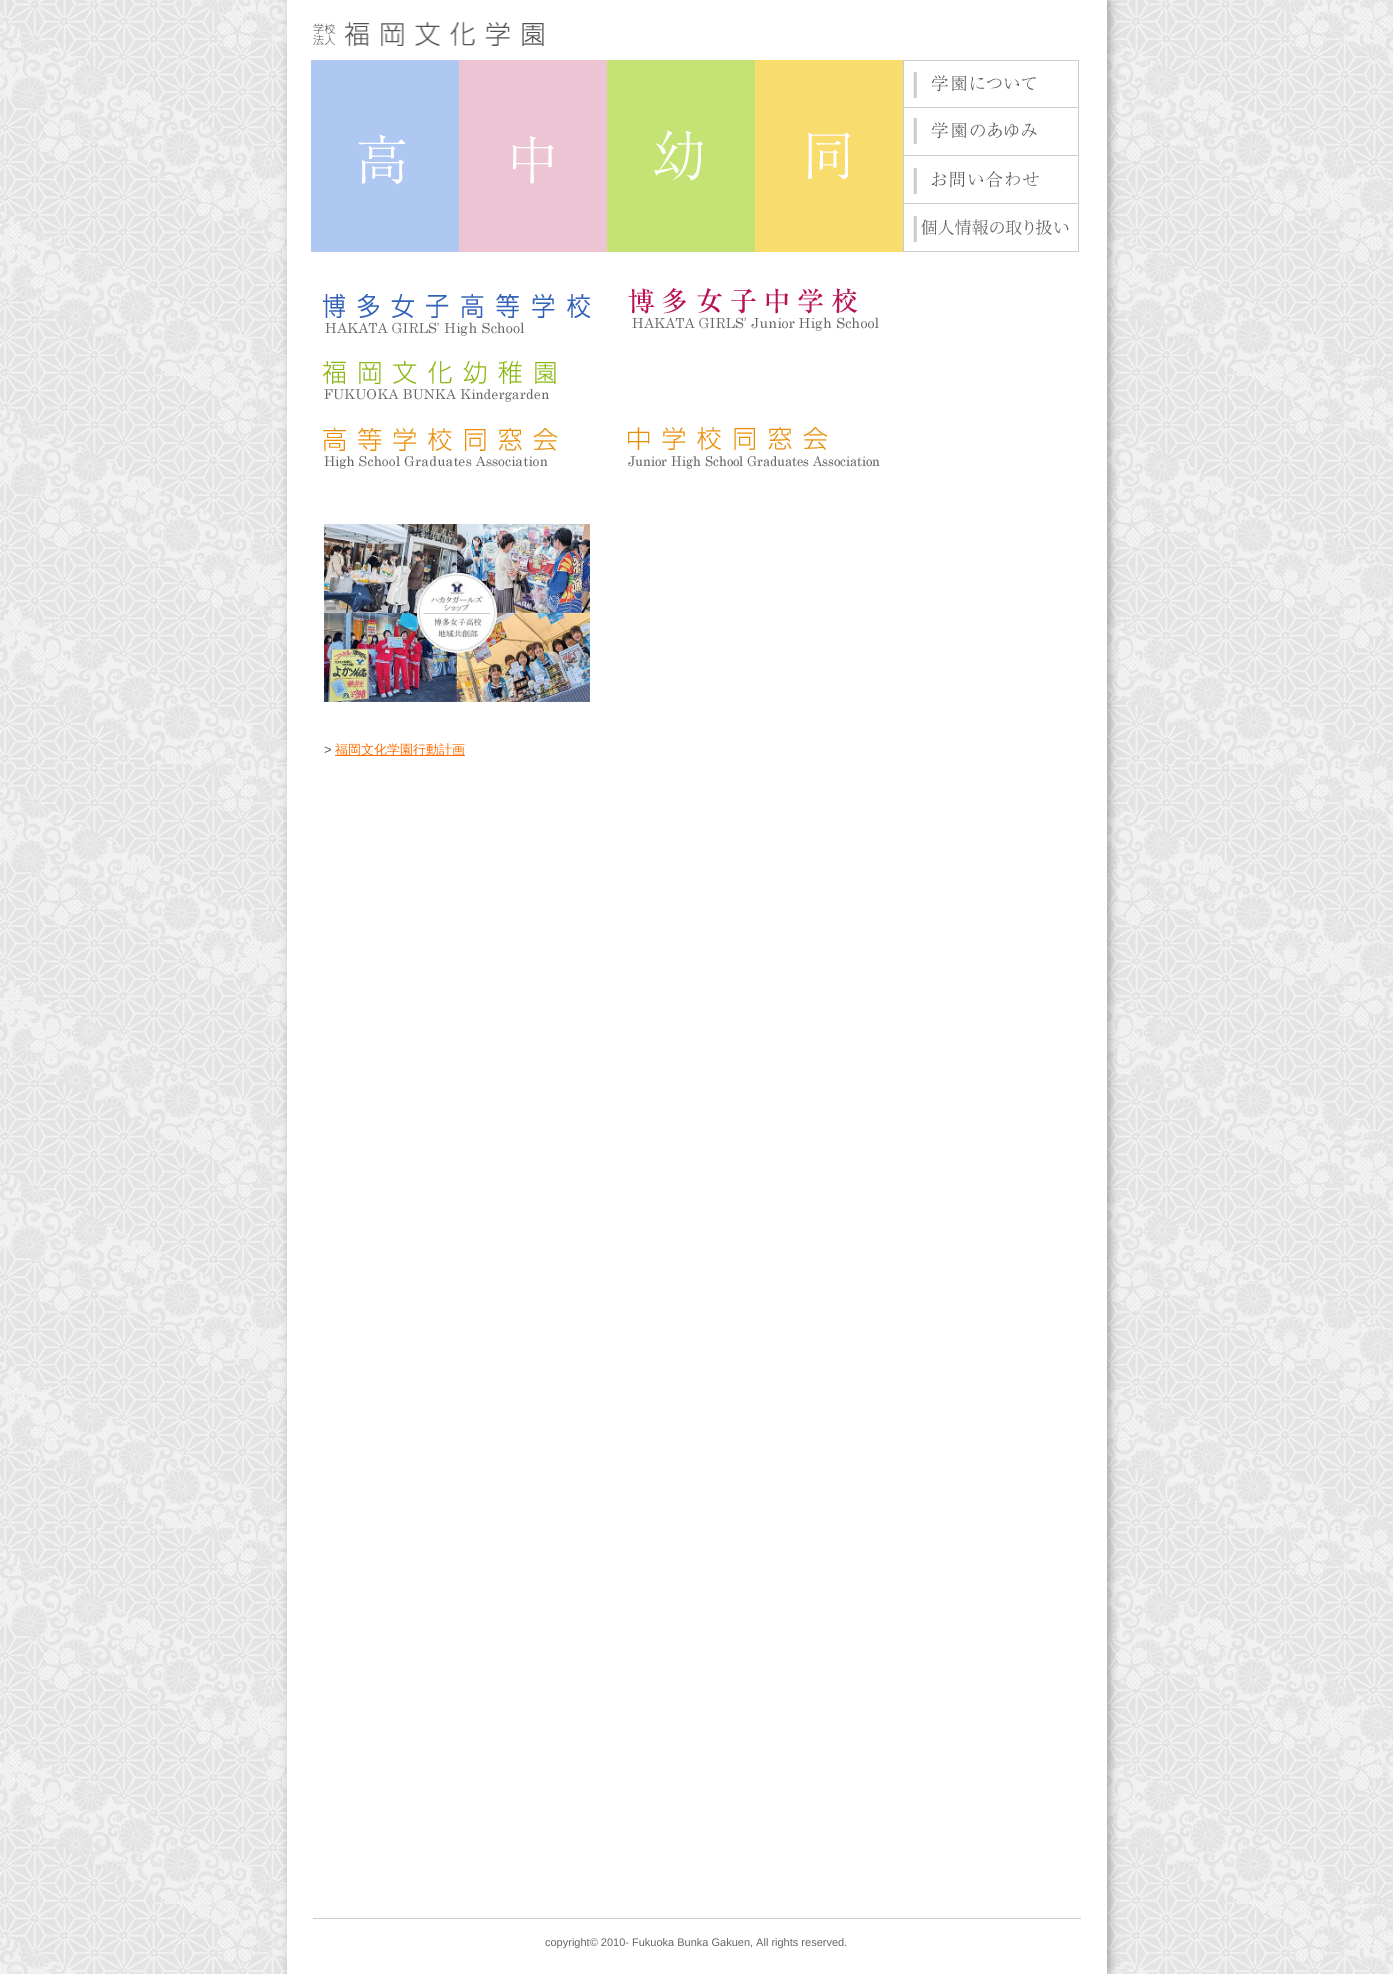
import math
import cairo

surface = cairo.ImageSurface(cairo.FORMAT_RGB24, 1393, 1974)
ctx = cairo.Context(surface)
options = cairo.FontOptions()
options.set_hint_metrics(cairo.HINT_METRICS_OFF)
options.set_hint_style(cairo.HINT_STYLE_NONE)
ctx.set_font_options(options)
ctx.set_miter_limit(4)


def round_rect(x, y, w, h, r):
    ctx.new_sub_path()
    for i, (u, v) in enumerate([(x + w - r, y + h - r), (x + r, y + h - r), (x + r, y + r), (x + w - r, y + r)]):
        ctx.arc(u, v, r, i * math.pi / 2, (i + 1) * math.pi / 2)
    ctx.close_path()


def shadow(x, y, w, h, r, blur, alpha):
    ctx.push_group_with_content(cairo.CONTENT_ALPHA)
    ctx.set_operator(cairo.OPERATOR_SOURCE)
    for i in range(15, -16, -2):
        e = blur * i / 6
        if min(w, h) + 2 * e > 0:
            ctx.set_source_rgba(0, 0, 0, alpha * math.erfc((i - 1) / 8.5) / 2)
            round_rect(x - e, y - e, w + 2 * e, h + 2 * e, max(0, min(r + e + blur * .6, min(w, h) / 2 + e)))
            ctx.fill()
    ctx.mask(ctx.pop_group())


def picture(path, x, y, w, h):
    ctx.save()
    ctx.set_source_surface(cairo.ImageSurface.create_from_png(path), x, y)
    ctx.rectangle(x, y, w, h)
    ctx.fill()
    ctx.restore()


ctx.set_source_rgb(1, 1, 1)
ctx.paint()
picture("img1.png", 0, 0, 1393, 1974)
ctx.set_source_rgb(0, 0, 0)
shadow(290, 0, 820, 1974, 0, 5, 0.3)
ctx.set_source_rgb(1, 1, 1)
ctx.rectangle(287, 0, 820, 1974)
ctx.fill()
picture("img2.png", 313, 22, 231, 24)
picture("img3.png", 311, 60, 148, 192)
picture("img4.png", 459, 60, 148, 192)
picture("img5.png", 607, 60, 148, 192)
picture("img6.png", 755, 60, 148, 192)
picture("img7.png", 903, 60, 176, 48)
picture("img8.png", 903, 108, 176, 48)
picture("img9.png", 903, 156, 176, 48)
picture("img10.png", 903, 204, 176, 48)
picture("img11.png", 323, 294, 267, 42)
picture("img12.png", 628, 288, 251, 43)
picture("img13.png", 323, 361, 233, 41)
picture("img14.png", 323, 427, 235, 42)
picture("img15.png", 628, 427, 252, 42)
picture("img16.png", 324, 524, 266, 178)
ctx.select_font_face("Liberation Sans")
ctx.set_font_size(13)
ctx.set_source_rgb(0.345, 0.345, 0.345)
ctx.move_to(324, 754)
ctx.show_text(">")
ctx.set_source_rgb(1, 0.424, 0)
ctx.rectangle(335, 755, 130, 1)
ctx.fill()
ctx.select_font_face("WenQuanYi Zen Hei Medium")
ctx.move_to(335, 754)
ctx.show_text("福岡文化学園行動計画")
ctx.set_source_rgb(0.8, 0.8, 0.8)
ctx.rectangle(313, 1918, 768, 1)
ctx.fill()
ctx.select_font_face("Liberation Sans")
ctx.set_font_size(11)
ctx.set_source_rgb(0.4, 0.4, 0.4)
ctx.move_to(545, 1946)
ctx.show_text("copyright© 2010- Fukuoka Bunka Gakuen, All rights reserved.")
surface.write_to_png("page.png")
